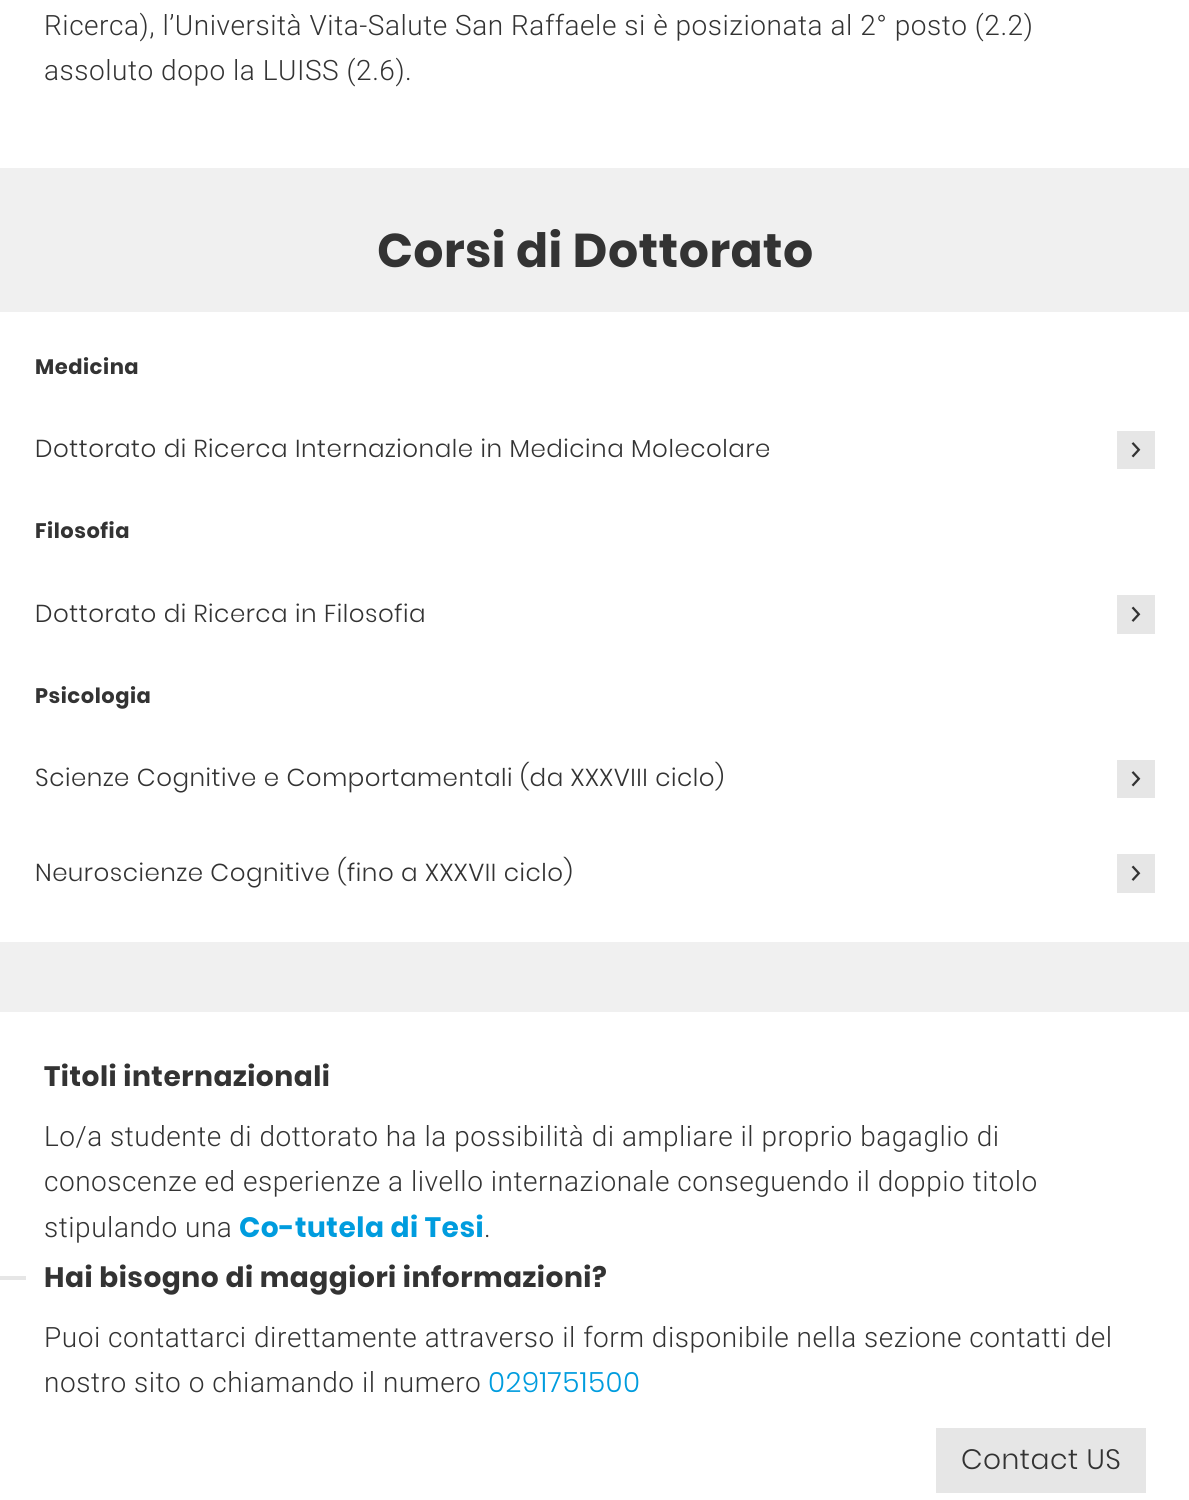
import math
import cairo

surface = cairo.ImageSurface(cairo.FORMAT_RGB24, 1189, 1500)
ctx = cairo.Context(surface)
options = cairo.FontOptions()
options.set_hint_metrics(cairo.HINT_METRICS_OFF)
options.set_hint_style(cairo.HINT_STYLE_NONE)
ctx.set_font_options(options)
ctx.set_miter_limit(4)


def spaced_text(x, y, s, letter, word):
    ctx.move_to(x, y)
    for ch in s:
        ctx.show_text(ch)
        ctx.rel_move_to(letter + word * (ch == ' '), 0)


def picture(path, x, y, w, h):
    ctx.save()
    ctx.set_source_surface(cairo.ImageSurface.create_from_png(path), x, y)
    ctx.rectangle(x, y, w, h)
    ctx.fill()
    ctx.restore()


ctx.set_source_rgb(0.941, 0.941, 0.941)
ctx.paint()
ctx.set_source_rgb(1, 1, 1)
ctx.rectangle(0, 0, 1189, 168)
ctx.fill()
ctx.select_font_face("Roboto Light")
ctx.set_font_size(28)
ctx.set_source_rgb(0.2, 0.2, 0.2)
spaced_text(44, 35, "Ricerca), l’Università Vita-Salute San Raffaele si è posizionata al 2° posto (2.2)", 0.53, 0)
spaced_text(44, 80, "assoluto dopo la LUISS (2.6).", 0.53, 0)
ctx.select_font_face("Poppins", cairo.FONT_SLANT_NORMAL, cairo.FONT_WEIGHT_BOLD)
ctx.set_font_size(47.25)
spaced_text(377, 267, "Corsi di Dottorato", 0.53, 0)
ctx.set_source_rgb(1, 1, 1)
ctx.rectangle(0, 312, 1189, 630)
ctx.fill()
ctx.set_font_size(21)
ctx.set_source_rgb(0.2, 0.2, 0.2)
spaced_text(35, 374, "Medicina", 0.53, 0)
ctx.select_font_face("Poppins Light")
ctx.set_font_size(24.5)
spaced_text(35, 457, "Dottorato di Ricerca Internazionale in Medicina Molecolare", 0.53, 0)
ctx.set_source_rgb(0.902, 0.902, 0.902)
ctx.rectangle(1117, 431, 38, 38)
ctx.fill()
picture("img1.png", 1131, 442, 10, 16)
ctx.select_font_face("Poppins", cairo.FONT_SLANT_NORMAL, cairo.FONT_WEIGHT_BOLD)
ctx.set_font_size(21)
ctx.set_source_rgb(0.2, 0.2, 0.2)
spaced_text(35, 538, "Filosofia", 0.53, 0)
ctx.select_font_face("Poppins Light")
ctx.set_font_size(24.5)
spaced_text(35, 622, "Dottorato di Ricerca in Filosofia", 0.53, 0)
ctx.set_source_rgb(0.902, 0.902, 0.902)
ctx.rectangle(1117, 595, 38, 39)
ctx.fill()
picture("img2.png", 1131, 606, 10, 16)
ctx.select_font_face("Poppins", cairo.FONT_SLANT_NORMAL, cairo.FONT_WEIGHT_BOLD)
ctx.set_font_size(21)
ctx.set_source_rgb(0.2, 0.2, 0.2)
spaced_text(35, 703, "Psicologia", 0.53, 0)
ctx.select_font_face("Poppins Light")
ctx.set_font_size(24.5)
spaced_text(35, 786, "Scienze Cognitive e Comportamentali (da XXXVIII ciclo)", 0.53, 0)
ctx.set_source_rgb(0.902, 0.902, 0.902)
ctx.rectangle(1117, 760, 38, 38)
ctx.fill()
picture("img1.png", 1131, 771, 10, 16)
ctx.set_source_rgb(0.2, 0.2, 0.2)
spaced_text(35, 881, "Neuroscienze Cognitive (fino a XXXVII ciclo)", 0.53, 0)
ctx.set_source_rgb(0.902, 0.902, 0.902)
ctx.rectangle(1117, 854, 38, 39)
ctx.fill()
picture("img2.png", 1131, 865, 10, 16)
ctx.set_source_rgb(1, 1, 1)
ctx.rectangle(0, 1012, 1189, 488)
ctx.fill()
ctx.select_font_face("Poppins", cairo.FONT_SLANT_NORMAL, cairo.FONT_WEIGHT_BOLD)
ctx.set_font_size(28)
ctx.set_source_rgb(0.2, 0.2, 0.2)
spaced_text(44, 1086, "Titoli internazionali", 0.53, 0)
ctx.select_font_face("Roboto Light")
spaced_text(44, 1146, "Lo/a studente di dottorato ha la possibilità di ampliare il proprio bagaglio di", 0.53, 0)
spaced_text(44, 1191, "conoscenze ed esperienze a livello internazionale conseguendo il doppio titolo", 0.53, 0)
spaced_text(44, 1237, "stipulando una", 0.53, 0)
ctx.select_font_face("Poppins", cairo.FONT_SLANT_NORMAL, cairo.FONT_WEIGHT_BOLD)
ctx.set_source_rgb(0, 0.612, 0.871)
spaced_text(239, 1237, "Co-tutela di Tesi", 0.53, 0)
ctx.select_font_face("Roboto Light")
ctx.set_source_rgb(0.2, 0.2, 0.2)
spaced_text(484, 1237, ".", 0.53, 0)
ctx.set_source_rgb(0.902, 0.902, 0.902)
ctx.rectangle(0, 1276, 26, 4)
ctx.fill()
ctx.select_font_face("Poppins", cairo.FONT_SLANT_NORMAL, cairo.FONT_WEIGHT_BOLD)
ctx.set_source_rgb(0.2, 0.2, 0.2)
spaced_text(44, 1287, "Hai bisogno di maggiori informazioni?", 0.53, 0)
ctx.select_font_face("Roboto Light")
spaced_text(44, 1347, "Puoi contattarci direttamente attraverso il form disponibile nella sezione contatti del", 0.53, 0)
spaced_text(44, 1392, "nostro sito o chiamando il numero", 0.53, 0)
ctx.select_font_face("Poppins Light")
ctx.set_source_rgb(0, 0.612, 0.871)
spaced_text(488, 1392, "0291751500", 0.53, 0)
ctx.set_source_rgb(0.902, 0.902, 0.902)
ctx.rectangle(936, 1428, 210, 65)
ctx.fill()
ctx.set_source_rgb(0.2, 0.2, 0.2)
spaced_text(961, 1469, "Contact US", 0.53, 0)
surface.write_to_png("page.png")
